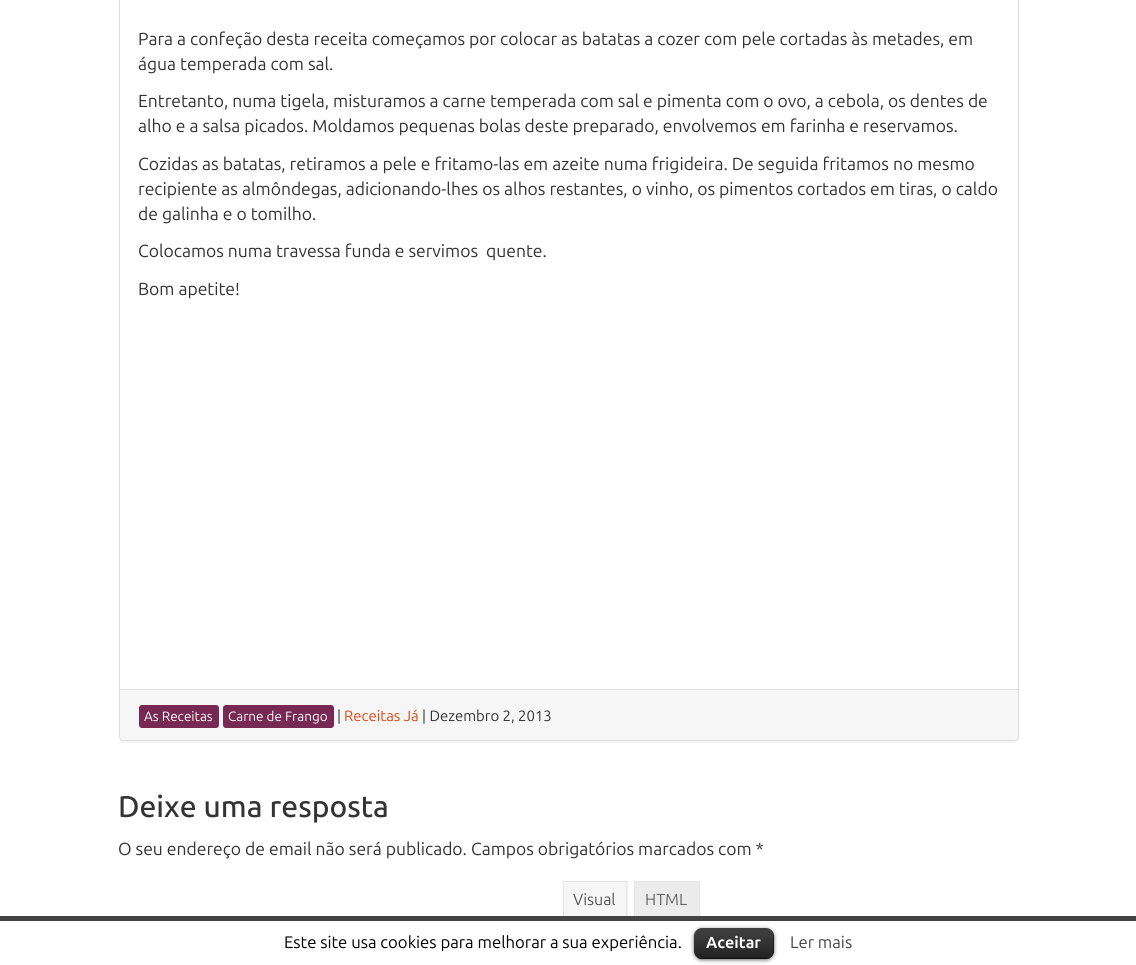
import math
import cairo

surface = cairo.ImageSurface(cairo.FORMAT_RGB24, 1136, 965)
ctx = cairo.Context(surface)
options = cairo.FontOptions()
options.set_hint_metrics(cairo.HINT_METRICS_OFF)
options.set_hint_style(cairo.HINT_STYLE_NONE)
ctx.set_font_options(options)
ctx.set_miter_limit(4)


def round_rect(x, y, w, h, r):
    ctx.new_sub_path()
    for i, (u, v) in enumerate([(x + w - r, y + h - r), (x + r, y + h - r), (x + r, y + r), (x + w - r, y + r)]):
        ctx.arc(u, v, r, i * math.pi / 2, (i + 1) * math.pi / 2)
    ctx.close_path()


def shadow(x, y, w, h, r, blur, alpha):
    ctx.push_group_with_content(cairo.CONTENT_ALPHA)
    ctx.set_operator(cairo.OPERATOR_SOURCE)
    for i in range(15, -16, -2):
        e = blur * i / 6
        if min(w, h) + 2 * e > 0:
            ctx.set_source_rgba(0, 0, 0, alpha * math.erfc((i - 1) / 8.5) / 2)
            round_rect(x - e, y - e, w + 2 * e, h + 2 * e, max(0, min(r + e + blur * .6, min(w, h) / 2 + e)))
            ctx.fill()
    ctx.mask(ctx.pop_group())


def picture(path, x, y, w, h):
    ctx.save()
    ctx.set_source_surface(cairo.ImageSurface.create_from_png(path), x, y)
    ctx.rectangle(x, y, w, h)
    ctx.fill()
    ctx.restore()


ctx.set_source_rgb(1, 1, 1)
ctx.paint()
ctx.set_source_rgb(0, 0, 0)
shadow(119, -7, 900, 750, 5, 0.5, 0.05)
ctx.set_source_rgb(1, 1, 1)
round_rect(119.5, -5.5, 899, 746, 4.5)
ctx.fill_preserve()
ctx.set_source_rgb(0.867, 0.867, 0.867)
ctx.set_line_width(1)
ctx.stroke()
ctx.select_font_face("Ubuntu")
ctx.set_font_size(17.5)
ctx.set_source_rgb(0.2, 0.2, 0.2)
ctx.move_to(138, 45)
ctx.show_text("Para a confeção desta receita começamos por colocar as batatas a cozer com pele cortadas às metades, em")
ctx.move_to(138, 70)
ctx.show_text("água temperada com sal.")
ctx.move_to(138, 107)
ctx.show_text("Entretanto, numa tigela, misturamos a carne temperada com sal e pimenta com o ovo, a cebola, os dentes de")
ctx.move_to(138, 132)
ctx.show_text("alho e a salsa picados. Moldamos pequenas bolas deste preparado, envolvemos em farinha e reservamos.")
ctx.move_to(138, 170)
ctx.show_text("Cozidas as batatas, retiramos a pele e fritamo-las em azeite numa frigideira. De seguida fritamos no mesmo")
ctx.move_to(138, 195)
ctx.show_text("recipiente as almôndegas, adicionando-lhes os alhos restantes, o vinho, os pimentos cortados em tiras, o caldo")
ctx.move_to(138, 220)
ctx.show_text("de galinha e o tomilho.")
ctx.move_to(138, 257)
ctx.show_text("Colocamos numa travessa funda e servimos  quente.")
ctx.move_to(138, 295)
ctx.show_text("Bom apetite!")
ctx.set_source_rgb(0.961, 0.961, 0.961)
ctx.new_path()
ctx.move_to(120, 689)
ctx.line_to(1018, 689)
ctx.line_to(1018, 736)
ctx.curve_to(1018, 738, 1016, 740, 1014, 740)
ctx.line_to(124, 740)
ctx.curve_to(122, 740, 120, 738, 120, 736)
ctx.close_path()
ctx.fill()
ctx.set_source_rgb(0.867, 0.867, 0.867)
ctx.rectangle(120, 689, 898, 1)
ctx.fill()
ctx.set_source_rgb(0.467, 0.161, 0.325)
round_rect(139, 705, 80, 23, 3)
ctx.fill()
ctx.set_font_size(13.5)
ctx.set_source_rgb(1, 1, 1)
ctx.move_to(144, 721)
ctx.show_text("As Receitas")
ctx.set_source_rgb(0.467, 0.161, 0.325)
round_rect(223, 705, 111, 23, 3)
ctx.fill()
ctx.set_source_rgb(1, 1, 1)
ctx.move_to(228, 721)
ctx.show_text("Carne de Frango")
ctx.set_font_size(14.9)
ctx.set_source_rgb(0.2, 0.2, 0.2)
ctx.move_to(337, 721)
ctx.show_text("|")
ctx.set_source_rgb(0.867, 0.282, 0.078)
ctx.move_to(344, 721)
ctx.show_text("Receitas Já")
ctx.set_source_rgb(0.2, 0.2, 0.2)
ctx.move_to(422, 721)
ctx.show_text("| Dezembro 2, 2013")
ctx.select_font_face("Ubuntu Medium")
ctx.set_font_size(30)
ctx.move_to(118, 817)
ctx.show_text("Deixe uma resposta")
ctx.select_font_face("Ubuntu")
ctx.set_font_size(17.5)
ctx.move_to(118, 855)
ctx.show_text("O seu endereço de email não será publicado. Campos obrigatórios marcados com *")
ctx.set_source_rgb(0.961, 0.961, 0.961)
ctx.rectangle(564, 882, 64, 34)
ctx.fill()
ctx.set_source_rgb(0.898, 0.898, 0.898)
ctx.rectangle(563, 881, 65, 1)
ctx.fill()
ctx.rectangle(626, 881, 1, 37)
ctx.fill()
ctx.rectangle(563, 881, 1, 37)
ctx.fill()
ctx.set_font_size(16)
ctx.set_source_rgb(0.333, 0.333, 0.333)
ctx.move_to(573, 905)
ctx.show_text("Visual")
ctx.set_source_rgb(0.922, 0.922, 0.922)
ctx.rectangle(635, 882, 64, 34)
ctx.fill()
ctx.rectangle(634.5, 881.5, 65, 36)
ctx.set_source_rgb(0.898, 0.898, 0.898)
ctx.stroke()
ctx.set_source_rgb(0.4, 0.4, 0.4)
ctx.move_to(645, 905)
ctx.show_text("HTML")
ctx.set_source_rgb(0.267, 0.267, 0.267)
ctx.rectangle(0, 916, 1136, 5)
ctx.fill()
ctx.set_font_size(16.7)
ctx.set_source_rgb(0, 0, 0)
ctx.move_to(284, 948)
ctx.show_text("Este site usa cookies para melhorar a sua experiência.")
ctx.set_source_rgb(0, 0, 0)
shadow(694, 929, 80, 31, 8, 2, 0.6)
ctx.set_source_rgb(0, 0, 0)
round_rect(694, 928, 80, 31, 8)
ctx.fill()
picture("img1.png", 694, 928, 80, 31)
ctx.set_source_rgba(0, 0, 0, 0.25)
ctx.rectangle(698, 958, 72, 1)
ctx.fill()
ctx.select_font_face("Ubuntu", cairo.FONT_SLANT_NORMAL, cairo.FONT_WEIGHT_BOLD)
ctx.set_font_size(16)
ctx.set_source_rgb(1, 1, 1)
ctx.move_to(706, 948)
ctx.show_text("Aceitar")
ctx.select_font_face("Ubuntu")
ctx.set_font_size(16.7)
ctx.set_source_rgb(0.267, 0.267, 0.267)
ctx.move_to(790, 948)
ctx.show_text("Ler mais")
surface.write_to_png("page.png")
